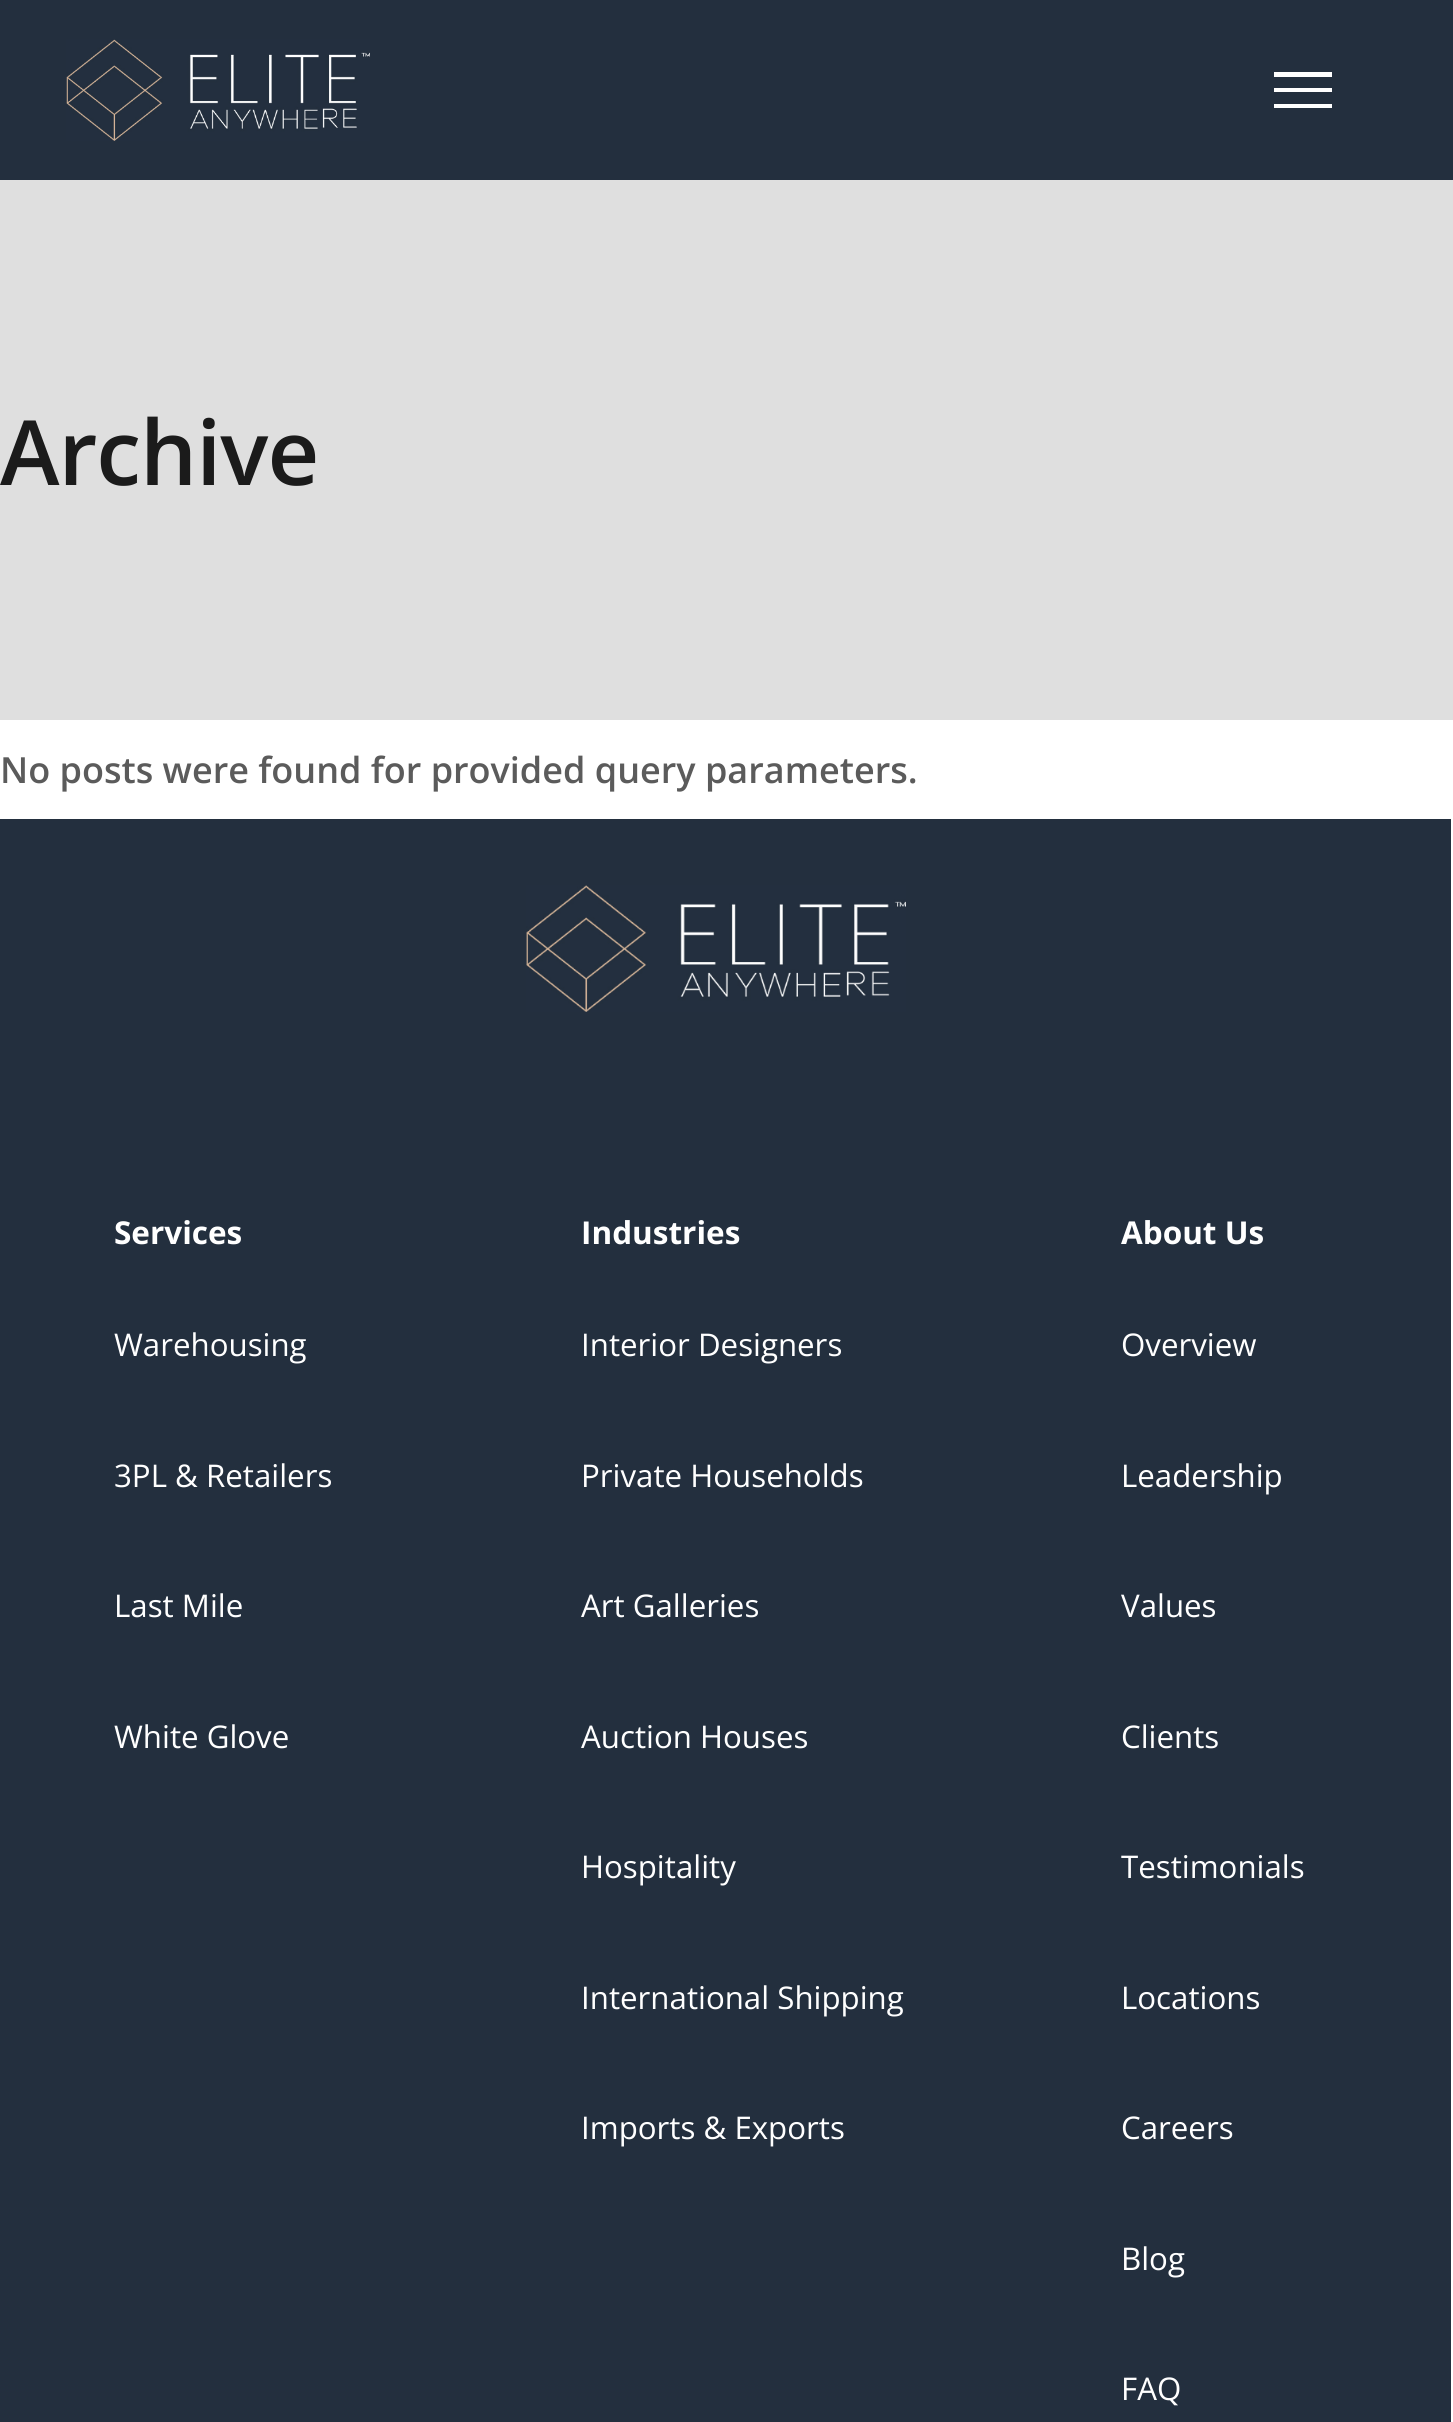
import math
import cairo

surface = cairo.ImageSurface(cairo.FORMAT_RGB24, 1453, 2422)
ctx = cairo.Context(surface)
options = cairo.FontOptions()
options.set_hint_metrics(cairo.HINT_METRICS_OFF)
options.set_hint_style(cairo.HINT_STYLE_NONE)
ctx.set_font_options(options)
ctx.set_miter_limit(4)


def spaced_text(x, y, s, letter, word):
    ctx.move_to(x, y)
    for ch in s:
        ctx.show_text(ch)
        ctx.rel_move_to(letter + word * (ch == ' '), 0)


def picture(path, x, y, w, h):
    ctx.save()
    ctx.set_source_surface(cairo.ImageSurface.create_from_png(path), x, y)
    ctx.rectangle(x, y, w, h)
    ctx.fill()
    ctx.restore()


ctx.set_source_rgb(1, 1, 1)
ctx.paint()
ctx.set_source_rgb(0.137, 0.184, 0.243)
ctx.rectangle(0, 0, 1453, 180)
ctx.fill()
picture("img1.png", 66, 39, 304, 102)
ctx.set_source_rgb(1, 1, 1)
ctx.rectangle(1274, 104, 58, 4)
ctx.fill()
ctx.rectangle(1274, 88, 58, 4)
ctx.fill()
ctx.rectangle(1274, 72, 58, 5)
ctx.fill()
ctx.set_source_rgb(0.875, 0.875, 0.875)
ctx.rectangle(0, 180, 1453, 540)
ctx.fill()
ctx.select_font_face("Open Sans SemiBold")
ctx.set_font_size(90)
ctx.set_source_rgb(0.106, 0.106, 0.106)
spaced_text(0, 485, "Archive", -1, 0)
ctx.set_font_size(36)
ctx.set_source_rgb(0.357, 0.357, 0.357)
ctx.move_to(0, 783)
ctx.show_text("No posts were found for provided query parameters.")
ctx.set_source_rgb(0.137, 0.184, 0.243)
ctx.rectangle(0, 819, 1451, 1603)
ctx.fill()
picture("img2.png", 526, 885, 380, 127)
ctx.select_font_face("Open Sans", cairo.FONT_SLANT_NORMAL, cairo.FONT_WEIGHT_BOLD)
ctx.set_font_size(31.5)
ctx.set_source_rgb(1, 1, 1)
ctx.move_to(114, 1244)
ctx.show_text("Services")
ctx.select_font_face("Open Sans")
ctx.set_font_size(31.25)
ctx.move_to(114, 1356)
ctx.show_text("Warehousing")
ctx.move_to(114, 1487)
ctx.show_text("3PL & Retailers")
ctx.move_to(114, 1617)
ctx.show_text("Last Mile")
ctx.move_to(114, 1748)
ctx.show_text("White Glove")
ctx.select_font_face("Open Sans", cairo.FONT_SLANT_NORMAL, cairo.FONT_WEIGHT_BOLD)
ctx.set_font_size(31.5)
ctx.move_to(581, 1244)
ctx.show_text("Industries")
ctx.select_font_face("Open Sans")
ctx.set_font_size(31.25)
ctx.move_to(581, 1356)
ctx.show_text("Interior Designers")
ctx.move_to(581, 1487)
ctx.show_text("Private Households")
ctx.move_to(581, 1617)
ctx.show_text("Art Galleries")
ctx.move_to(581, 1748)
ctx.show_text("Auction Houses")
ctx.move_to(581, 1878)
ctx.show_text("Hospitality")
ctx.move_to(581, 2009)
ctx.show_text("International Shipping")
ctx.move_to(581, 2139)
ctx.show_text("Imports & Exports")
ctx.select_font_face("Open Sans", cairo.FONT_SLANT_NORMAL, cairo.FONT_WEIGHT_BOLD)
ctx.set_font_size(31.5)
ctx.move_to(1121, 1244)
ctx.show_text("About Us")
ctx.select_font_face("Open Sans")
ctx.set_font_size(31.25)
ctx.move_to(1121, 1356)
ctx.show_text("Overview")
ctx.move_to(1121, 1487)
ctx.show_text("Leadership")
ctx.move_to(1121, 1617)
ctx.show_text("Values")
ctx.move_to(1121, 1748)
ctx.show_text("Clients")
ctx.move_to(1121, 1878)
ctx.show_text("Testimonials")
ctx.move_to(1121, 2009)
ctx.show_text("Locations")
ctx.move_to(1121, 2139)
ctx.show_text("Careers")
ctx.move_to(1121, 2270)
ctx.show_text("Blog")
ctx.move_to(1121, 2400)
ctx.show_text("FAQ")
surface.write_to_png("page.png")
